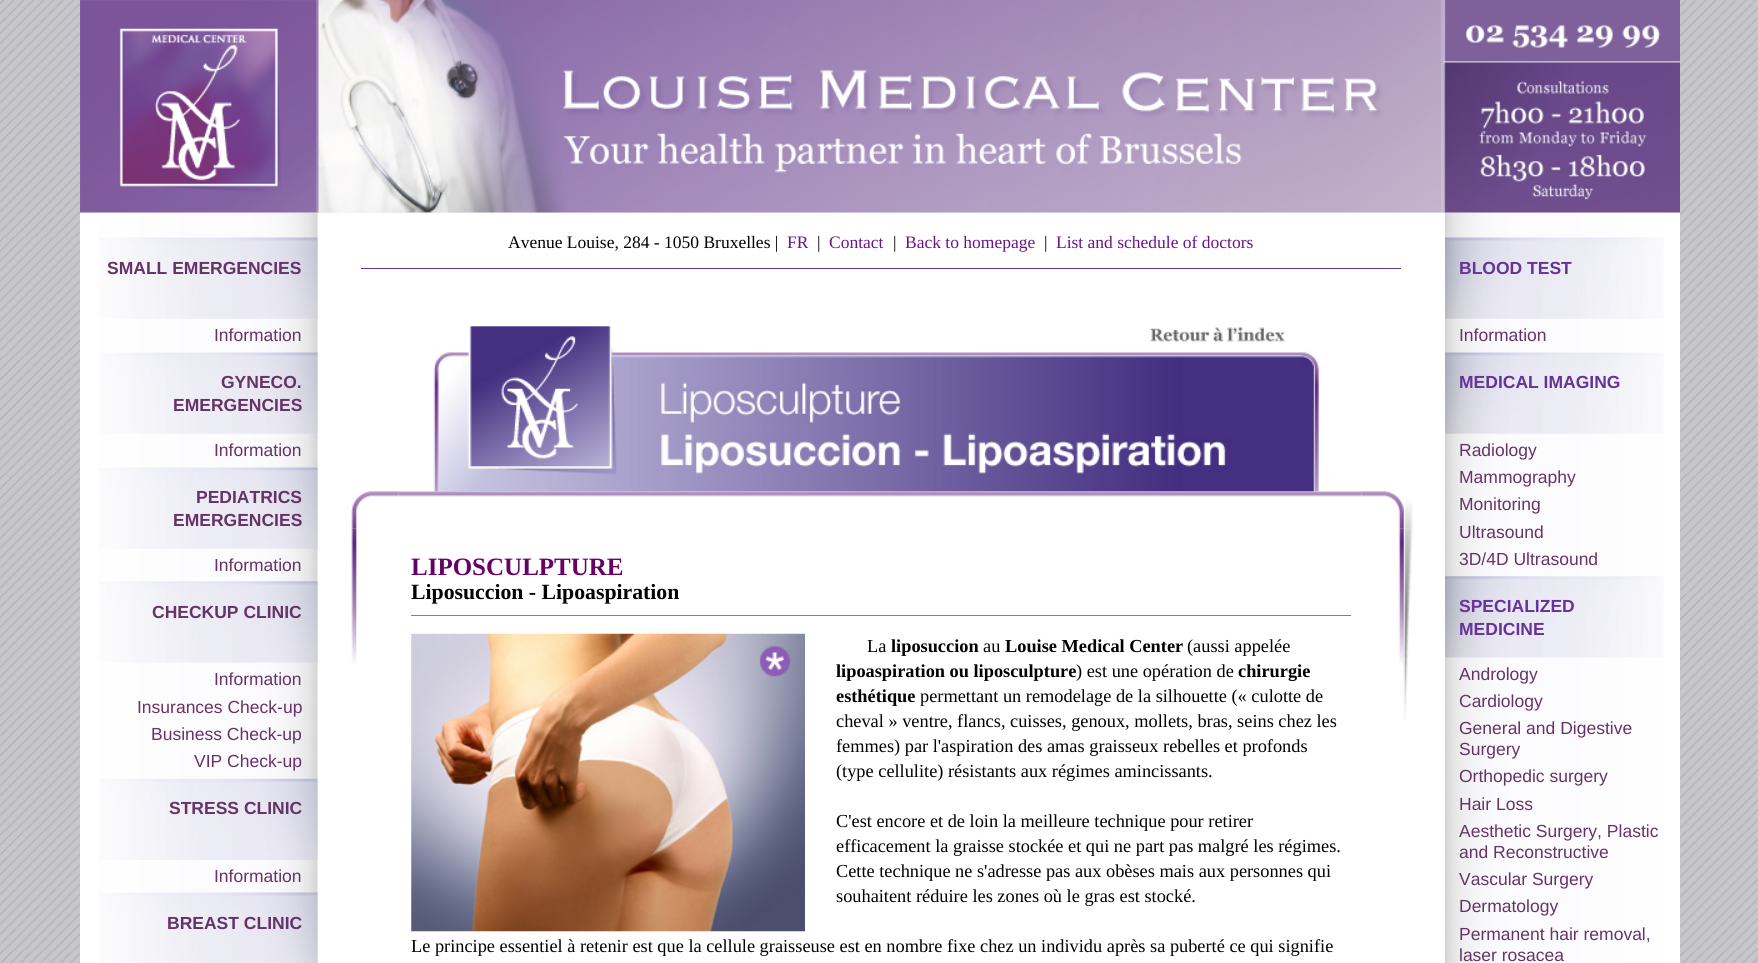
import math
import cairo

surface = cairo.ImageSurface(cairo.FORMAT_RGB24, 1758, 963)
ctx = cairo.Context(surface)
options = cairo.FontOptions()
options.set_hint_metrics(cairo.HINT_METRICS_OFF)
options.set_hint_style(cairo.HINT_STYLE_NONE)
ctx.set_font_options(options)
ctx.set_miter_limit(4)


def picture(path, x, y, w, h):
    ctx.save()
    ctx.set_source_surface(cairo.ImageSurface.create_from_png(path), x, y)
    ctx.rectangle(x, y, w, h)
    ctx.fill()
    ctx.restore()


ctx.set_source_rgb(1, 1, 1)
ctx.paint()
picture("img1.png", 0, 0, 1758, 963)
ctx.set_source_rgb(1, 1, 1)
ctx.rectangle(80, 0, 1600, 963)
ctx.fill()
picture("img2.png", 80, 170, 1600, 43)
picture("img6.png", 99, 212, 219, 751)
picture("img3.png", 80, 0, 237, 213)
picture("img4.png", 316, 0, 1126, 213)
picture("img20.png", 1445, 212, 219, 751)
picture("img5.png", 1441, 0, 239, 213)
picture("img7.png", 99, 237, 219, 82)
ctx.select_font_face("Liberation Sans", cairo.FONT_SLANT_NORMAL, cairo.FONT_WEIGHT_BOLD)
ctx.set_font_size(17.5)
ctx.set_source_rgb(0.4, 0.2, 0.4)
ctx.move_to(107, 274)
ctx.show_text("SMALL EMERGENCIES")
ctx.select_font_face("Liberation Sans")
ctx.move_to(214, 341)
ctx.show_text("Information")
picture("img8.png", 99, 352, 219, 82)
ctx.select_font_face("Liberation Sans", cairo.FONT_SLANT_NORMAL, cairo.FONT_WEIGHT_BOLD)
ctx.move_to(221, 388)
ctx.show_text("GYNECO.")
ctx.move_to(173, 411)
ctx.show_text("EMERGENCIES")
ctx.select_font_face("Liberation Sans")
ctx.move_to(214, 456)
ctx.show_text("Information")
picture("img9.png", 99, 467, 219, 82)
ctx.select_font_face("Liberation Sans", cairo.FONT_SLANT_NORMAL, cairo.FONT_WEIGHT_BOLD)
ctx.move_to(196, 503)
ctx.show_text("PEDIATRICS")
ctx.move_to(173, 526)
ctx.show_text("EMERGENCIES")
ctx.select_font_face("Liberation Sans")
ctx.move_to(214, 571)
ctx.show_text("Information")
picture("img10.png", 99, 581, 219, 82)
ctx.select_font_face("Liberation Sans", cairo.FONT_SLANT_NORMAL, cairo.FONT_WEIGHT_BOLD)
ctx.move_to(152, 618)
ctx.show_text("CHECKUP CLINIC")
ctx.select_font_face("Liberation Sans")
ctx.move_to(214, 685)
ctx.show_text("Information")
ctx.move_to(137, 713)
ctx.show_text("Insurances Check-up")
ctx.move_to(151, 740)
ctx.show_text("Business Check-up")
ctx.move_to(194, 767)
ctx.show_text("VIP Check-up")
picture("img11.png", 99, 778, 219, 82)
ctx.select_font_face("Liberation Sans", cairo.FONT_SLANT_NORMAL, cairo.FONT_WEIGHT_BOLD)
ctx.move_to(169, 814)
ctx.show_text("STRESS CLINIC")
ctx.select_font_face("Liberation Sans")
ctx.move_to(214, 882)
ctx.show_text("Information")
picture("img12.png", 99, 892, 219, 71)
ctx.select_font_face("Liberation Sans", cairo.FONT_SLANT_NORMAL, cairo.FONT_WEIGHT_BOLD)
ctx.move_to(167, 929)
ctx.show_text("BREAST CLINIC")
ctx.select_font_face("Liberation Serif")
ctx.set_source_rgb(0, 0, 0)
ctx.move_to(508, 248)
ctx.show_text("Avenue Louise, 284 - 1050 Bruxelles |")
ctx.set_source_rgb(0.424, 0.078, 0.541)
ctx.move_to(787, 248)
ctx.show_text("FR")
ctx.set_source_rgb(0, 0, 0)
ctx.move_to(817, 248)
ctx.show_text("|")
ctx.set_source_rgb(0.424, 0.078, 0.541)
ctx.move_to(829, 248)
ctx.show_text("Contact")
ctx.set_source_rgb(0, 0, 0)
ctx.move_to(893, 248)
ctx.show_text("|")
ctx.set_source_rgb(0.424, 0.078, 0.541)
ctx.move_to(905, 248)
ctx.show_text("Back to homepage")
ctx.set_source_rgb(0, 0, 0)
ctx.move_to(1044, 248)
ctx.show_text("|")
ctx.set_source_rgb(0.424, 0.078, 0.541)
ctx.move_to(1056, 248)
ctx.show_text("List and schedule of doctors")
ctx.set_source_rgb(0.4, 0.2, 0.6)
ctx.rectangle(361, 268, 1040, 1)
ctx.fill()
picture("img15.png", 398, 491, 964, 6)
picture("img13.png", 398, 325, 964, 167)
picture("img14.png", 351, 491, 48, 38)
picture("img16.png", 1361, 491, 52, 38)
picture("img17.png", 351, 528, 6, 136)
ctx.select_font_face("Liberation Serif", cairo.FONT_SLANT_NORMAL, cairo.FONT_WEIGHT_BOLD)
ctx.set_font_size(25)
ctx.set_source_rgb(0.4, 0, 0.4)
ctx.move_to(411, 575)
ctx.show_text("LIPOSCULPTURE")
ctx.set_font_size(21.75)
ctx.set_source_rgb(0, 0, 0)
ctx.move_to(411, 599)
ctx.show_text("Liposuccion - Lipoaspiration")
ctx.set_source_rgb(0.502, 0.502, 0.502)
ctx.rectangle(411, 615, 940, 1)
ctx.fill()
picture("img18.png", 411, 633, 394, 299)
ctx.select_font_face("Liberation Serif")
ctx.set_font_size(18.33)
ctx.set_source_rgb(0, 0, 0)
ctx.move_to(867, 652)
ctx.show_text("La")
ctx.select_font_face("Liberation Serif", cairo.FONT_SLANT_NORMAL, cairo.FONT_WEIGHT_BOLD)
ctx.move_to(891, 652)
ctx.show_text("liposuccion")
ctx.select_font_face("Liberation Serif")
ctx.move_to(983, 652)
ctx.show_text("au")
ctx.select_font_face("Liberation Serif", cairo.FONT_SLANT_NORMAL, cairo.FONT_WEIGHT_BOLD)
ctx.move_to(1005, 652)
ctx.show_text("Louise Medical Center")
ctx.select_font_face("Liberation Serif")
ctx.move_to(1187, 652)
ctx.show_text("(aussi appelée")
ctx.select_font_face("Liberation Serif", cairo.FONT_SLANT_NORMAL, cairo.FONT_WEIGHT_BOLD)
ctx.move_to(836, 677)
ctx.show_text("lipoaspiration ou liposculpture")
ctx.select_font_face("Liberation Serif")
ctx.move_to(1076, 677)
ctx.show_text(") est une opération de")
ctx.select_font_face("Liberation Serif", cairo.FONT_SLANT_NORMAL, cairo.FONT_WEIGHT_BOLD)
ctx.move_to(1238, 677)
ctx.show_text("chirurgie")
ctx.move_to(836, 702)
ctx.show_text("esthétique")
ctx.select_font_face("Liberation Serif")
ctx.move_to(920, 702)
ctx.show_text("permettant un remodelage de la silhouette (« culotte de")
ctx.move_to(836, 727)
ctx.show_text("cheval » ventre, flancs, cuisses, genoux, mollets, bras, seins chez les")
ctx.move_to(836, 752)
ctx.show_text("femmes) par l'aspiration des amas graisseux rebelles et profonds")
ctx.move_to(836, 777)
ctx.show_text("(type cellulite) résistants aux régimes amincissants.")
ctx.move_to(836, 827)
ctx.show_text("C'est encore et de loin la meilleure technique pour retirer")
ctx.move_to(836, 852)
ctx.show_text("efficacement la graisse stockée et qui ne part pas malgré les régimes.")
ctx.move_to(836, 877)
ctx.show_text("Cette technique ne s'adresse pas aux obèses mais aux personnes qui")
ctx.move_to(836, 902)
ctx.show_text("souhaitent réduire les zones où le gras est stocké.")
ctx.move_to(411, 952)
ctx.show_text("Le principe essentiel à retenir est que la cellule graisseuse est en nombre fixe chez un individu après sa puberté ce qui signifie")
picture("img19.png", 1398, 528, 15, 193)
picture("img21.png", 1445, 237, 219, 82)
ctx.select_font_face("Liberation Sans", cairo.FONT_SLANT_NORMAL, cairo.FONT_WEIGHT_BOLD)
ctx.set_font_size(17.5)
ctx.set_source_rgb(0.4, 0.2, 0.6)
ctx.move_to(1459, 274)
ctx.show_text("BLOOD TEST")
ctx.select_font_face("Liberation Sans")
ctx.set_source_rgb(0.4, 0.2, 0.4)
ctx.move_to(1459, 341)
ctx.show_text("Information")
picture("img22.png", 1445, 352, 219, 82)
ctx.select_font_face("Liberation Sans", cairo.FONT_SLANT_NORMAL, cairo.FONT_WEIGHT_BOLD)
ctx.set_source_rgb(0.4, 0.2, 0.6)
ctx.move_to(1459, 388)
ctx.show_text("MEDICAL IMAGING")
ctx.select_font_face("Liberation Sans")
ctx.set_source_rgb(0.4, 0.2, 0.4)
ctx.move_to(1459, 456)
ctx.show_text("Radiology")
ctx.move_to(1459, 483)
ctx.show_text("Mammography")
ctx.move_to(1459, 510)
ctx.show_text("Monitoring")
ctx.move_to(1459, 538)
ctx.show_text("Ultrasound")
ctx.move_to(1459, 565)
ctx.show_text("3D/4D Ultrasound")
picture("img23.png", 1445, 576, 219, 82)
ctx.select_font_face("Liberation Sans", cairo.FONT_SLANT_NORMAL, cairo.FONT_WEIGHT_BOLD)
ctx.set_source_rgb(0.4, 0.2, 0.6)
ctx.move_to(1459, 612)
ctx.show_text("SPECIALIZED")
ctx.move_to(1459, 635)
ctx.show_text("MEDICINE")
ctx.select_font_face("Liberation Sans")
ctx.set_source_rgb(0.4, 0.2, 0.4)
ctx.move_to(1459, 680)
ctx.show_text("Andrology")
ctx.move_to(1459, 707)
ctx.show_text("Cardiology")
ctx.move_to(1459, 734)
ctx.show_text("General and Digestive")
ctx.move_to(1459, 755)
ctx.show_text("Surgery")
ctx.move_to(1459, 782)
ctx.show_text("Orthopedic surgery")
ctx.move_to(1459, 810)
ctx.show_text("Hair Loss")
ctx.move_to(1459, 837)
ctx.show_text("Aesthetic Surgery, Plastic")
ctx.move_to(1459, 858)
ctx.show_text("and Reconstructive")
ctx.move_to(1459, 885)
ctx.show_text("Vascular Surgery")
ctx.move_to(1459, 912)
ctx.show_text("Dermatology")
ctx.move_to(1459, 940)
ctx.show_text("Permanent hair removal,")
ctx.move_to(1459, 961)
ctx.show_text("laser rosacea")
surface.write_to_png("page.png")
